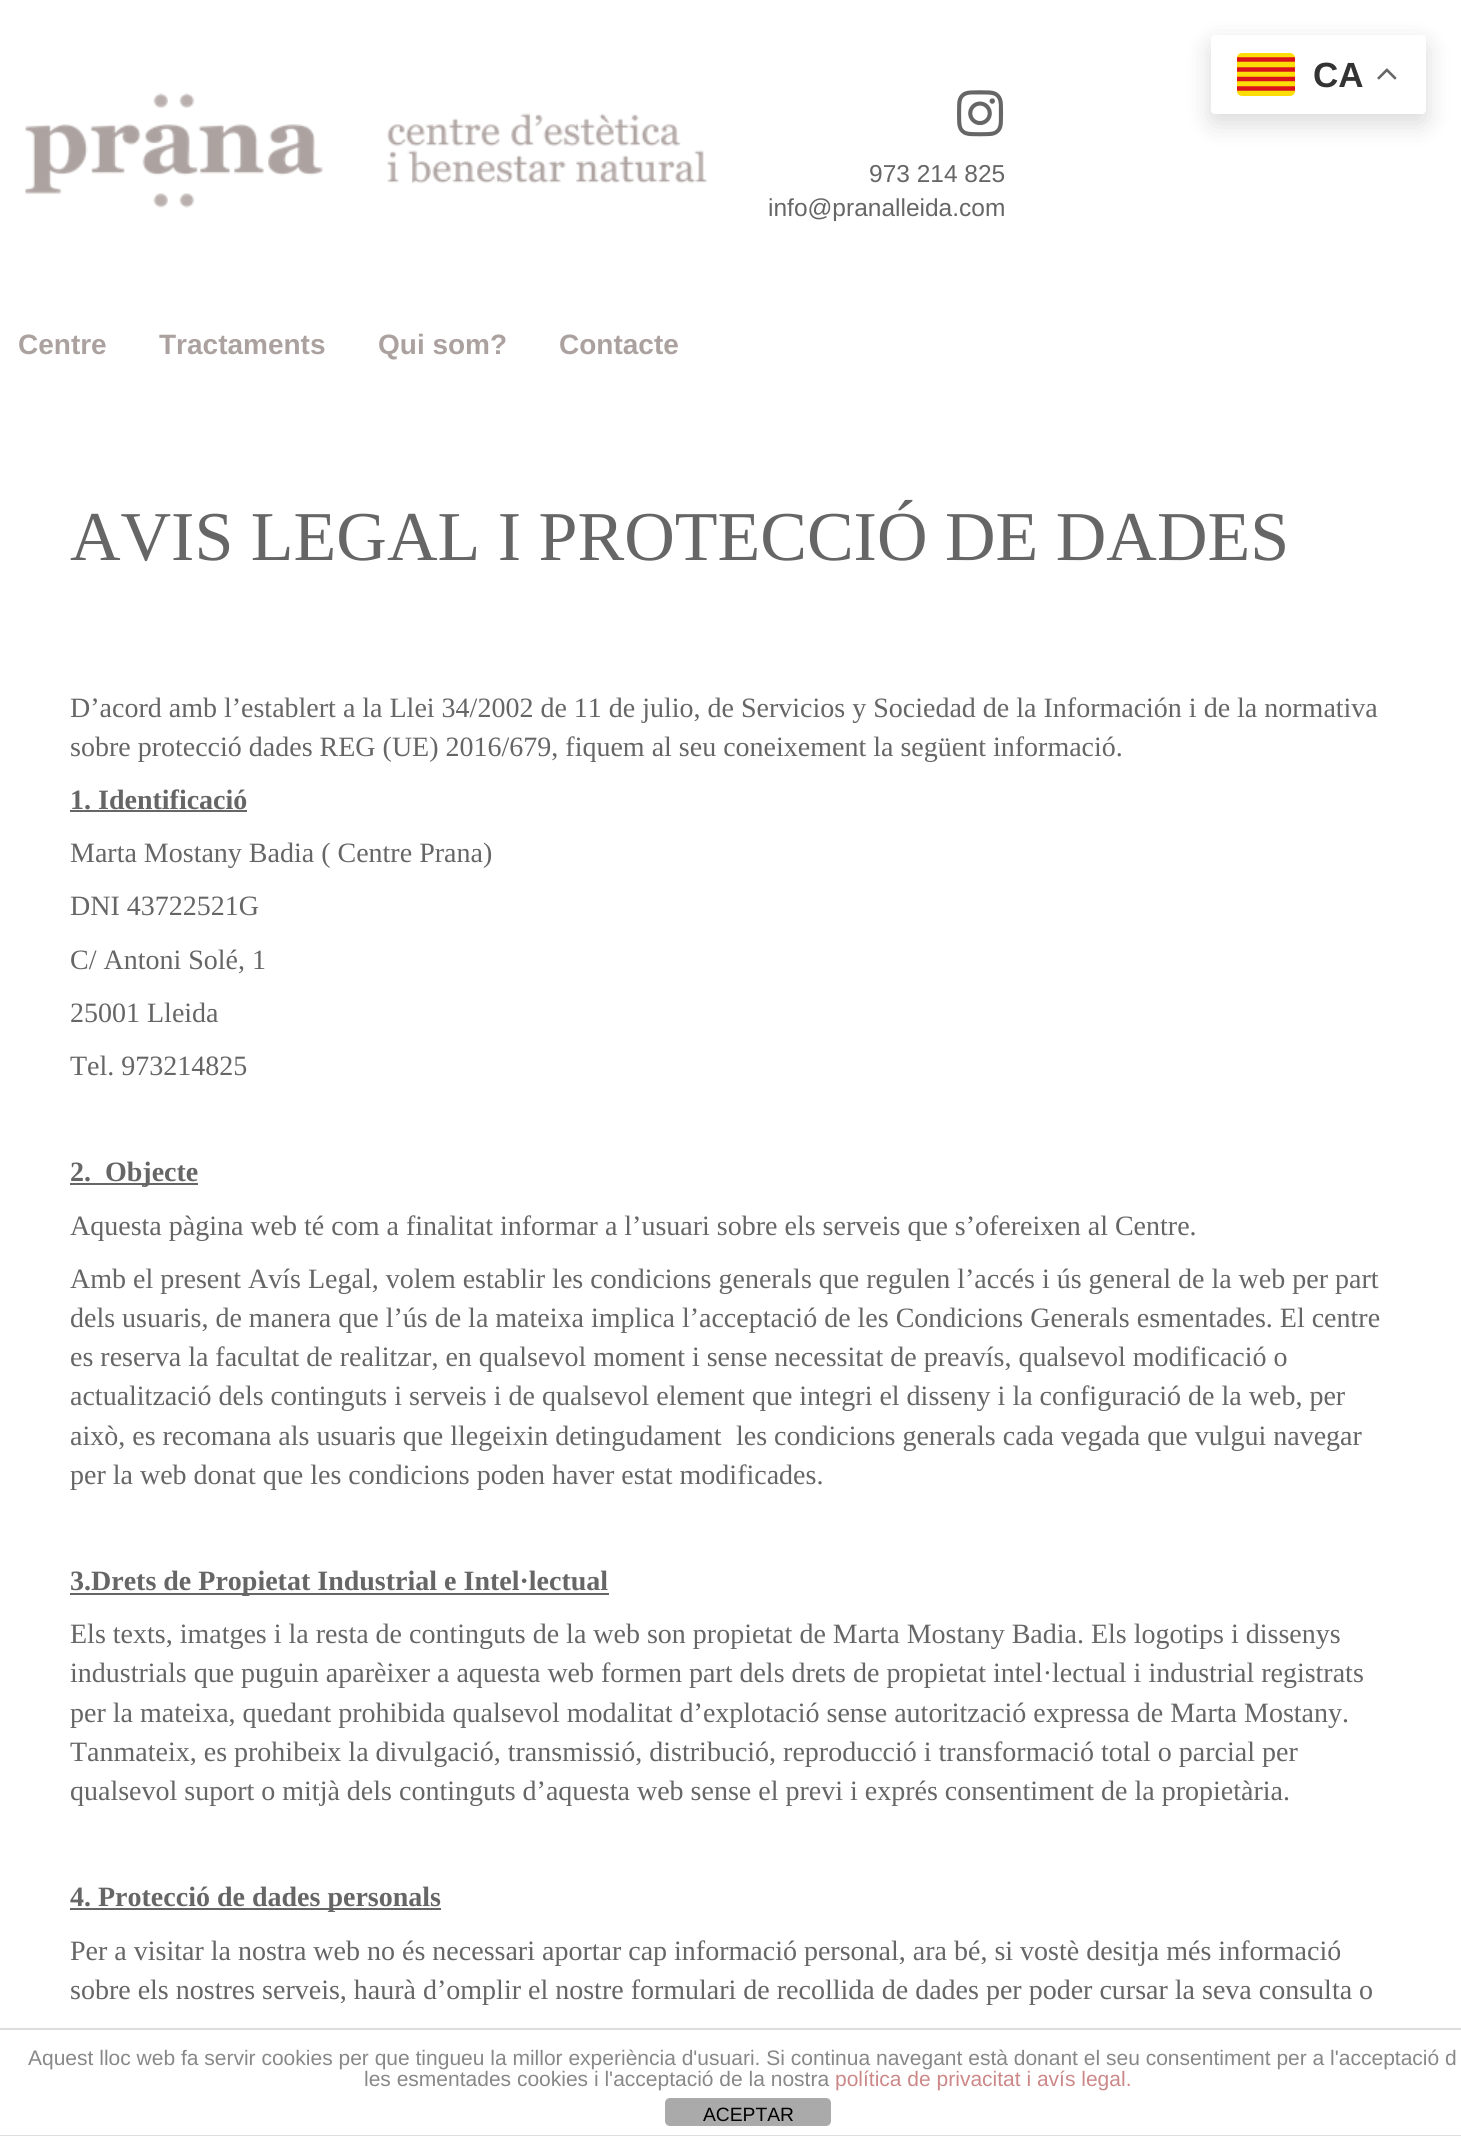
import math
import cairo

surface = cairo.ImageSurface(cairo.FORMAT_RGB24, 1461, 2136)
ctx = cairo.Context(surface)
options = cairo.FontOptions()
options.set_hint_metrics(cairo.HINT_METRICS_OFF)
options.set_hint_style(cairo.HINT_STYLE_NONE)
ctx.set_font_options(options)
ctx.set_miter_limit(4)


def round_rect(x, y, w, h, r):
    ctx.new_sub_path()
    for i, (u, v) in enumerate([(x + w - r, y + h - r), (x + r, y + h - r), (x + r, y + r), (x + w - r, y + r)]):
        ctx.arc(u, v, r, i * math.pi / 2, (i + 1) * math.pi / 2)
    ctx.close_path()


def shadow(x, y, w, h, r, blur, alpha):
    ctx.push_group_with_content(cairo.CONTENT_ALPHA)
    ctx.set_operator(cairo.OPERATOR_SOURCE)
    for i in range(15, -16, -2):
        e = blur * i / 6
        if min(w, h) + 2 * e > 0:
            ctx.set_source_rgba(0, 0, 0, alpha * math.erfc((i - 1) / 8.5) / 2)
            round_rect(x - e, y - e, w + 2 * e, h + 2 * e, max(0, min(r + e + blur * .6, min(w, h) / 2 + e)))
            ctx.fill()
    ctx.mask(ctx.pop_group())


def picture(path, x, y, w, h):
    ctx.save()
    ctx.set_source_surface(cairo.ImageSurface.create_from_png(path), x, y)
    ctx.rectangle(x, y, w, h)
    ctx.fill()
    ctx.restore()


ctx.set_source_rgb(1, 1, 1)
ctx.paint()
ctx.set_source_rgb(0, 0, 0)
shadow(1211, 44, 215, 79, 4, 13, 0.15)
ctx.set_source_rgb(1, 1, 1)
round_rect(1211, 35, 215, 79, 4)
ctx.fill()
ctx.set_source_rgb(0.988, 0.867, 0.035)
round_rect(1237, 53, 58, 43, 5)
ctx.fill()
ctx.new_path()
ctx.move_to(1237, 59.5)
ctx.line_to(1295, 59.5)
ctx.move_to(1295, 69.5)
ctx.line_to(1237, 69.5)
ctx.move_to(1237, 79)
ctx.line_to(1295, 79)
ctx.move_to(1295, 88.5)
ctx.line_to(1237, 88.5)
ctx.set_source_rgb(0.855, 0.071, 0.102)
ctx.set_line_width(4.5)
ctx.stroke()
ctx.select_font_face("Liberation Sans", cairo.FONT_SLANT_NORMAL, cairo.FONT_WEIGHT_BOLD)
ctx.set_font_size(35)
ctx.set_source_rgb(0.2, 0.2, 0.2)
ctx.move_to(1313, 87)
ctx.show_text("CA")
picture("img1.png", 1377, 68, 20, 12)
picture("img2.png", 25, 93, 682, 115)
picture("img3.png", 957, 90, 47, 47)
ctx.select_font_face("Liberation Sans")
ctx.set_font_size(24.5)
ctx.set_source_rgb(0.4, 0.4, 0.4)
ctx.move_to(869, 182)
ctx.show_text("973 214 825")
ctx.move_to(768, 216)
ctx.show_text("info@pranalleida.com")
ctx.select_font_face("Liberation Sans", cairo.FONT_SLANT_NORMAL, cairo.FONT_WEIGHT_BOLD)
ctx.set_font_size(28)
ctx.set_source_rgb(0.671, 0.635, 0.627)
ctx.move_to(18, 354)
ctx.show_text("Centre")
ctx.move_to(159, 354)
ctx.show_text("Tractaments")
ctx.move_to(378, 354)
ctx.show_text("Qui som?")
ctx.move_to(559, 354)
ctx.show_text("Contacte")
ctx.select_font_face("Liberation Serif")
ctx.set_font_size(70)
ctx.set_source_rgb(0.4, 0.4, 0.4)
ctx.move_to(70, 560)
ctx.show_text("AVIS LEGAL I PROTECCIÓ DE DADES")
ctx.set_font_size(28)
ctx.move_to(70, 717)
ctx.show_text("D’acord amb l’establert a la Llei 34/2002 de 11 de julio, de Servicios y Sociedad de la Información i de la normativa")
ctx.move_to(70, 756)
ctx.show_text("sobre protecció dades REG (UE) 2016/679, fiquem al seu coneixement la següent informació.")
ctx.select_font_face("Liberation Serif", cairo.FONT_SLANT_NORMAL, cairo.FONT_WEIGHT_BOLD)
ctx.move_to(70, 809)
ctx.show_text("1. Identificació")
ctx.rectangle(70, 810, 177, 2)
ctx.fill()
ctx.select_font_face("Liberation Serif")
ctx.move_to(70, 862)
ctx.show_text("Marta Mostany Badia ( Centre Prana)")
ctx.move_to(70, 915)
ctx.show_text("DNI 43722521G")
ctx.move_to(70, 969)
ctx.show_text("C/ Antoni Solé, 1")
ctx.move_to(70, 1022)
ctx.show_text("25001 Lleida")
ctx.move_to(70, 1075)
ctx.show_text("Tel. 973214825")
ctx.rectangle(70, 1183, 128, 2)
ctx.fill()
ctx.select_font_face("Liberation Serif", cairo.FONT_SLANT_NORMAL, cairo.FONT_WEIGHT_BOLD)
ctx.move_to(70, 1181)
ctx.show_text("2.  Objecte")
ctx.select_font_face("Liberation Serif")
ctx.move_to(70, 1235)
ctx.show_text("Aquesta pàgina web té com a finalitat informar a l’usuari sobre els serveis que s’ofereixen al Centre.")
ctx.move_to(70, 1288)
ctx.show_text("Amb el present Avís Legal, volem establir les condicions generals que regulen l’accés i ús general de la web per part")
ctx.move_to(70, 1327)
ctx.show_text("dels usuaris, de manera que l’ús de la mateixa implica l’acceptació de les Condicions Generals esmentades. El centre")
ctx.move_to(70, 1366)
ctx.show_text("es reserva la facultat de realitzar, en qualsevol moment i sense necessitat de preavís, qualsevol modificació o")
ctx.move_to(70, 1405)
ctx.show_text("actualització dels continguts i serveis i de qualsevol element que integri el disseny i la configuració de la web, per")
ctx.move_to(70, 1445)
ctx.show_text("això, es recomana als usuaris que llegeixin detingudament")
ctx.move_to(736, 1445)
ctx.show_text("les condicions generals cada vegada que vulgui navegar")
ctx.move_to(70, 1484)
ctx.show_text("per la web donat que les condicions poden haver estat modificades.")
ctx.rectangle(70, 1593, 539, 2)
ctx.fill()
ctx.select_font_face("Liberation Serif", cairo.FONT_SLANT_NORMAL, cairo.FONT_WEIGHT_BOLD)
ctx.move_to(70, 1590)
ctx.show_text("3.Drets de Propietat Industrial e Intel·lectual")
ctx.select_font_face("Liberation Serif")
ctx.move_to(70, 1643)
ctx.show_text("Els texts, imatges i la resta de continguts de la web son propietat de Marta Mostany Badia. Els logotips i dissenys")
ctx.move_to(70, 1682)
ctx.show_text("industrials que puguin aparèixer a aquesta web formen part dels drets de propietat intel·lectual i industrial registrats")
ctx.move_to(70, 1722)
ctx.show_text("per la mateixa, quedant prohibida qualsevol modalitat d’explotació sense autorització expressa de Marta Mostany.")
ctx.move_to(70, 1761)
ctx.show_text("Tanmateix, es prohibeix la divulgació, transmissió, distribució, reproducció i transformació total o parcial per")
ctx.move_to(70, 1800)
ctx.show_text("qualsevol suport o mitjà dels continguts d’aquesta web sense el previ i exprés consentiment de la propietària.")
ctx.rectangle(70, 1908, 371, 2)
ctx.fill()
ctx.select_font_face("Liberation Serif", cairo.FONT_SLANT_NORMAL, cairo.FONT_WEIGHT_BOLD)
ctx.move_to(70, 1906)
ctx.show_text("4. Protecció de dades personals")
ctx.select_font_face("Liberation Serif")
ctx.move_to(70, 1960)
ctx.show_text("Per a visitar la nostra web no és necessari aportar cap informació personal, ara bé, si vostè desitja més informació")
ctx.move_to(70, 1999)
ctx.show_text("sobre els nostres serveis, haurà d’omplir el nostre formulari de recollida de dades per poder cursar la seva consulta o")
ctx.set_source_rgb(0.867, 0.867, 0.867)
ctx.rectangle(0, 2028, 1461, 2)
ctx.fill()
ctx.rectangle(0, 2135, 1461, 1)
ctx.fill()
ctx.select_font_face("Liberation Sans")
ctx.set_font_size(21)
ctx.set_source_rgb(0.533, 0.533, 0.533)
ctx.move_to(28, 2065)
ctx.show_text("Aquest lloc web fa servir cookies per que tingueu la millor experiència d'usuari. Si continua navegant està donant el seu consentiment per a l'acceptació d")
ctx.move_to(364, 2086)
ctx.show_text("les esmentades cookies i l'acceptació de la nostra")
ctx.set_source_rgb(0.8, 0.533, 0.533)
ctx.move_to(835, 2086)
ctx.show_text("política de privacitat i avís legal.")
ctx.set_source_rgb(0.667, 0.667, 0.667)
round_rect(665, 2098, 166, 28, 5)
ctx.fill()
ctx.set_font_size(19.25)
ctx.set_source_rgb(0, 0, 0)
ctx.move_to(703, 2121)
ctx.show_text("ACEPTAR")
surface.write_to_png("page.png")
